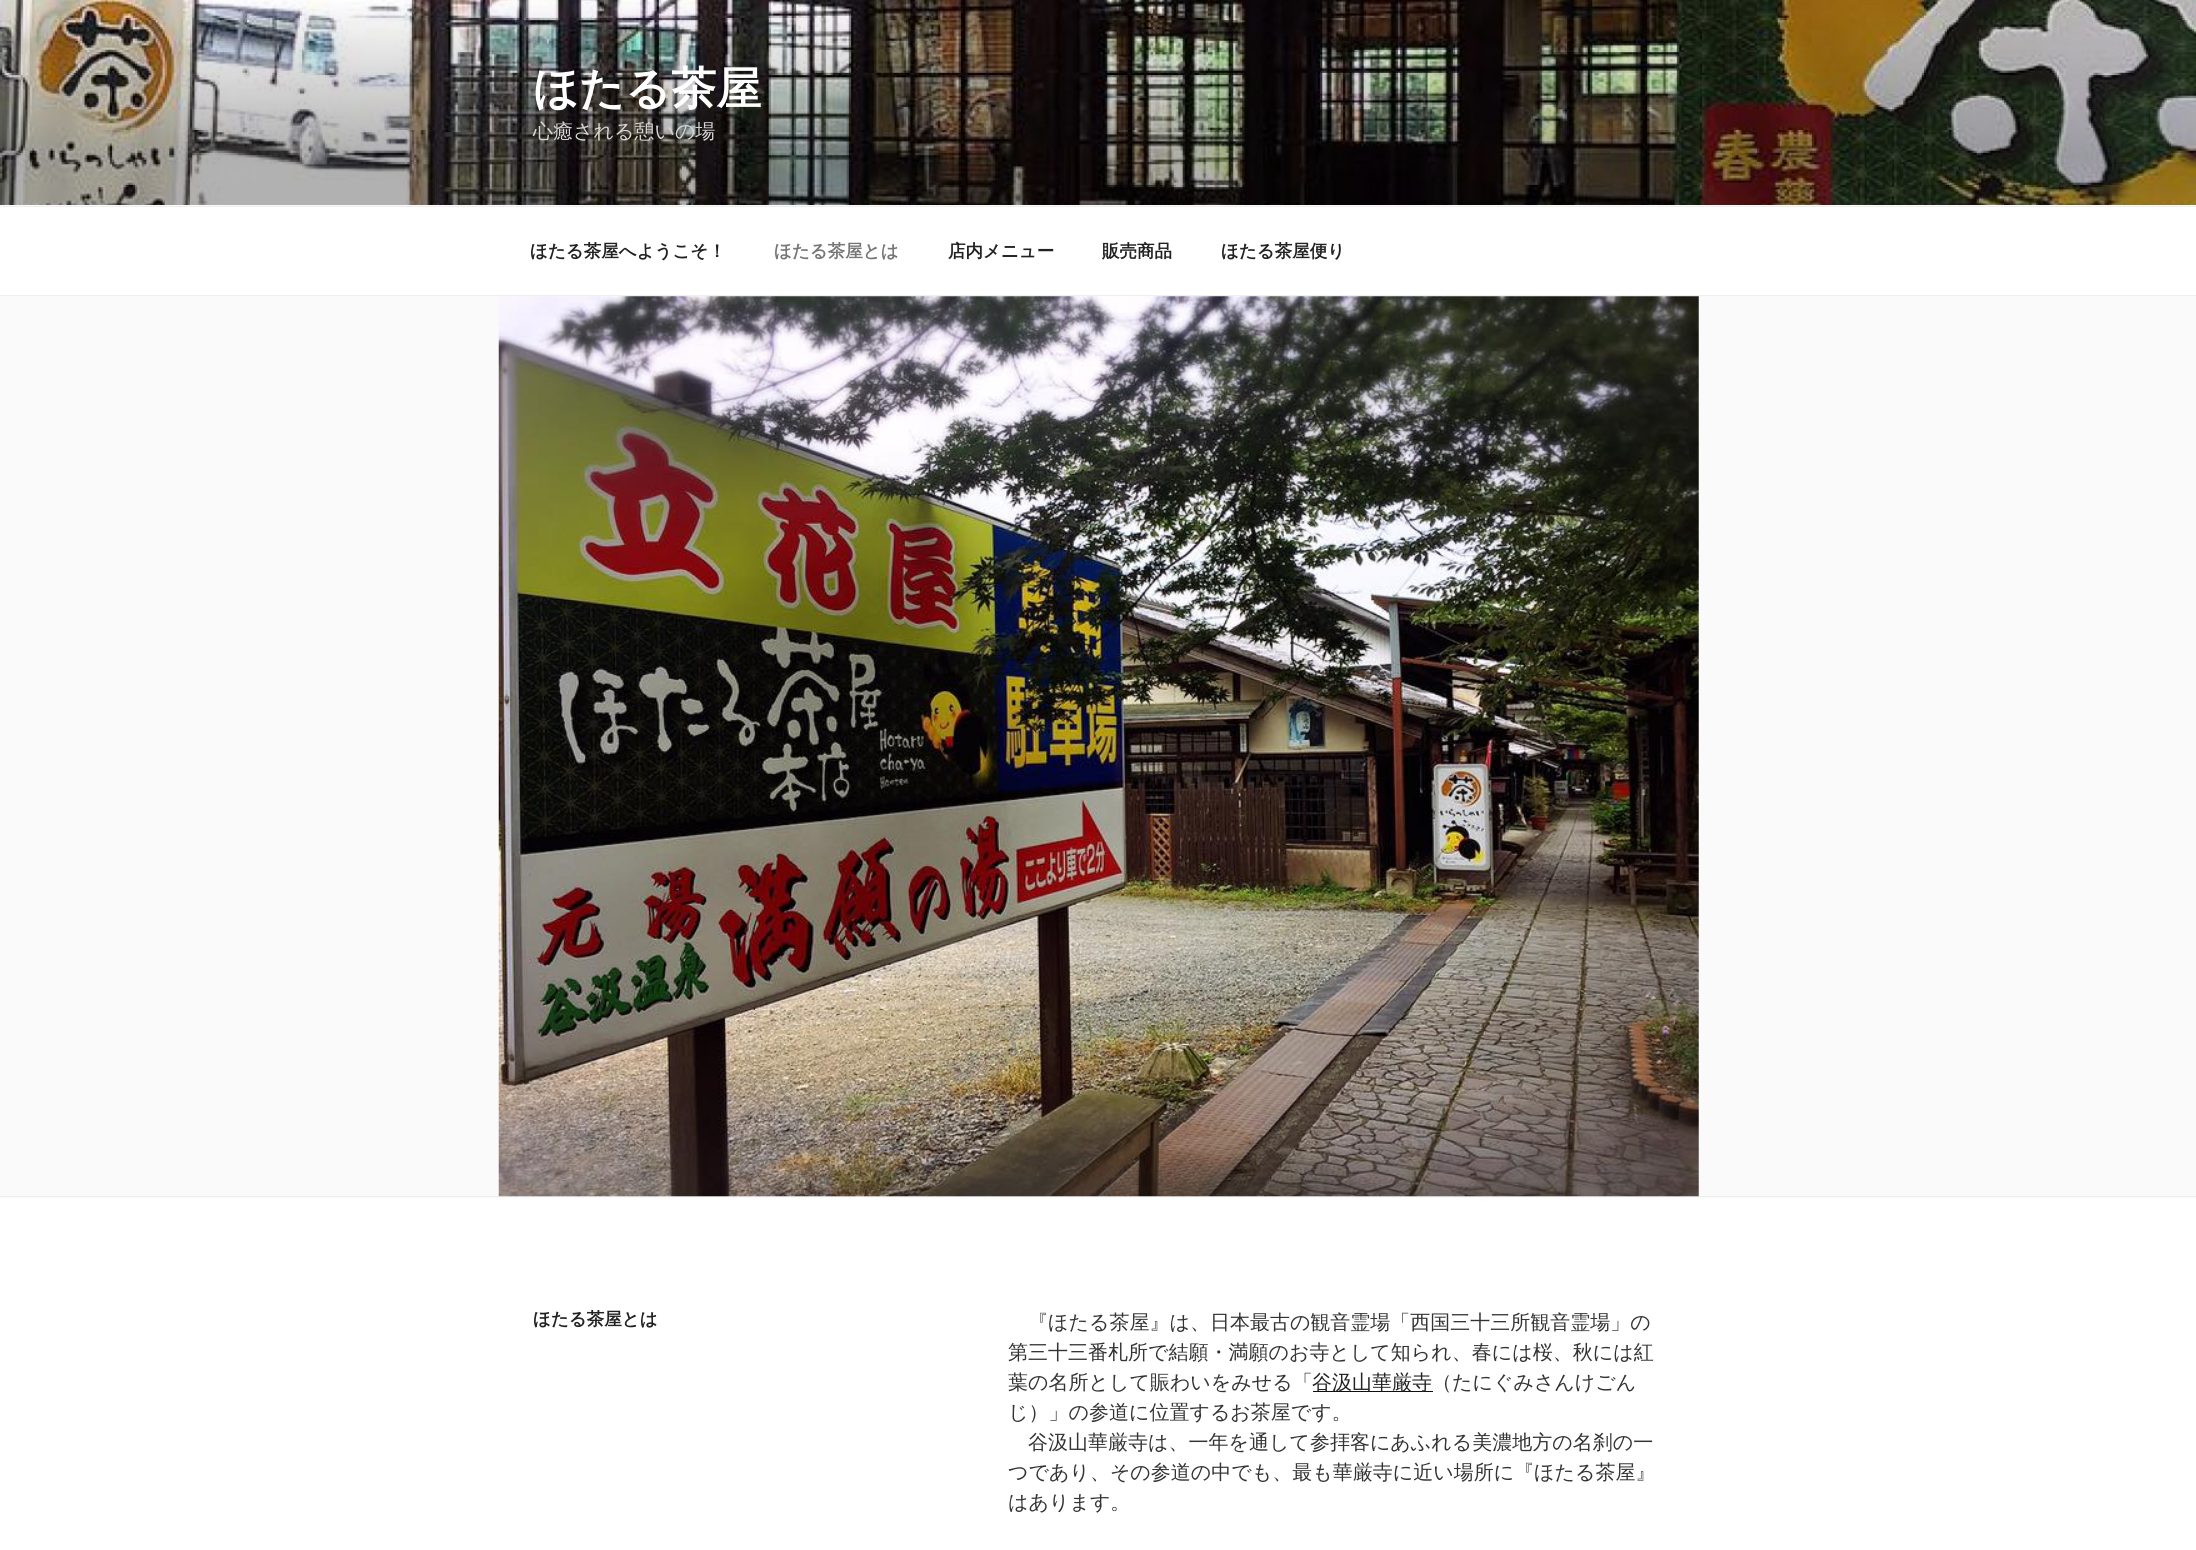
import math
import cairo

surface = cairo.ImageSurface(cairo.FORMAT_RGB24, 2196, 1550)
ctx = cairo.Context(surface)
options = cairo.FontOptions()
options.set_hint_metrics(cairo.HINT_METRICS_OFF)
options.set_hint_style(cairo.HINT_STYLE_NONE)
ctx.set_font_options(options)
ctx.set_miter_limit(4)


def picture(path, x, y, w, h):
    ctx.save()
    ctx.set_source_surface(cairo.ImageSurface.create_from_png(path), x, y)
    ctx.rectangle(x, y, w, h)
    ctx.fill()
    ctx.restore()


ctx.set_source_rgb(1, 1, 1)
ctx.paint()
ctx.set_source_rgb(0.98, 0.98, 0.98)
ctx.rectangle(0, 205, 2196, 1)
ctx.fill()
picture("img1.png", 0, 0, 2196, 205)
ctx.select_font_face("WenQuanYi Zen Hei", cairo.FONT_SLANT_NORMAL, cairo.FONT_WEIGHT_BOLD)
ctx.set_font_size(45)
ctx.set_source_rgb(1, 1, 1)
ctx.move_to(533, 104)
ctx.show_text("ほたる茶屋")
ctx.select_font_face("WenQuanYi Zen Hei Medium")
ctx.set_font_size(20)
ctx.set_source_rgb(0.839, 0.839, 0.835)
ctx.move_to(533, 138)
ctx.show_text("心癒される憩いの場")
ctx.set_source_rgb(0.933, 0.933, 0.933)
ctx.rectangle(0, 206, 2196, 1)
ctx.fill()
ctx.rectangle(0, 295, 2196, 1)
ctx.fill()
ctx.select_font_face("WenQuanYi Zen Hei", cairo.FONT_SLANT_NORMAL, cairo.FONT_WEIGHT_BOLD)
ctx.set_font_size(17.5)
ctx.set_source_rgb(0.133, 0.133, 0.133)
ctx.move_to(530, 257)
ctx.show_text("ほたる茶屋へようこそ！")
ctx.set_source_rgb(0.463, 0.463, 0.463)
ctx.move_to(774, 257)
ctx.show_text("ほたる茶屋とは")
ctx.set_source_rgb(0.133, 0.133, 0.133)
ctx.move_to(948, 257)
ctx.show_text("店内メニュー")
ctx.move_to(1102, 257)
ctx.show_text("販売商品")
ctx.move_to(1221, 257)
ctx.show_text("ほたる茶屋便り")
ctx.set_source_rgb(0.98, 0.98, 0.98)
ctx.rectangle(0, 296, 2196, 902)
ctx.fill()
ctx.set_source_rgb(0.933, 0.933, 0.933)
ctx.rectangle(0, 1196, 2196, 1)
ctx.fill()
picture("img2.png", 498, 296, 1201, 901)
ctx.set_source_rgb(0.133, 0.133, 0.133)
ctx.move_to(533, 1325)
ctx.show_text("ほたる茶屋とは")
ctx.select_font_face("WenQuanYi Zen Hei Medium")
ctx.set_font_size(20)
ctx.set_source_rgb(0.2, 0.2, 0.2)
ctx.move_to(1028, 1329)
ctx.show_text("『ほたる茶屋』は、日本最古の観音霊場「西国三十三所観音霊場」の")
ctx.move_to(1008, 1359)
ctx.show_text("第三十三番札所で結願・満願のお寺として知られ、春には桜、秋には紅")
ctx.move_to(1008, 1389)
ctx.show_text("葉の名所として賑わいをみせる「")
ctx.set_source_rgb(0.059, 0.059, 0.059)
ctx.rectangle(1313, 1391, 120, 1)
ctx.fill()
ctx.set_source_rgb(0.133, 0.133, 0.133)
ctx.move_to(1312, 1389)
ctx.show_text("谷汲山華厳寺")
ctx.set_source_rgb(0.2, 0.2, 0.2)
ctx.move_to(1432, 1389)
ctx.show_text("（たにぐみさんけごん")
ctx.move_to(1008, 1419)
ctx.show_text("じ）」の参道に位置するお茶屋です。")
ctx.move_to(1028, 1449)
ctx.show_text("谷汲山華厳寺は、一年を通して参拝客にあふれる美濃地方の名刹の一")
ctx.move_to(1008, 1479)
ctx.show_text("つであり、その参道の中でも、最も華厳寺に近い場所に『ほたる茶屋』")
ctx.move_to(1008, 1509)
ctx.show_text("はあります。")
surface.write_to_png("page.png")
